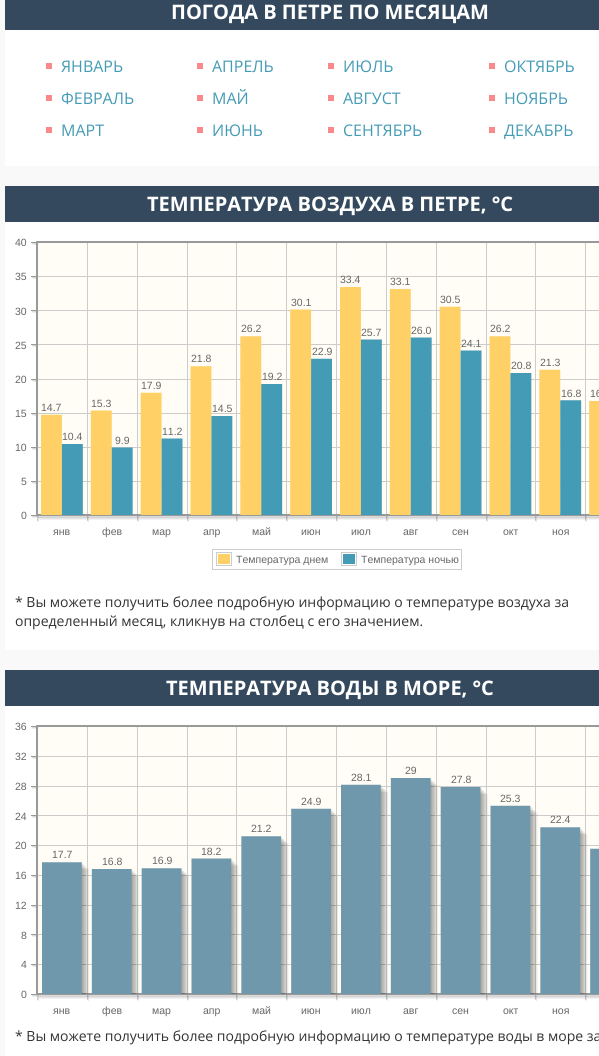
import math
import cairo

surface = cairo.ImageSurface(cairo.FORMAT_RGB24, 599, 1056)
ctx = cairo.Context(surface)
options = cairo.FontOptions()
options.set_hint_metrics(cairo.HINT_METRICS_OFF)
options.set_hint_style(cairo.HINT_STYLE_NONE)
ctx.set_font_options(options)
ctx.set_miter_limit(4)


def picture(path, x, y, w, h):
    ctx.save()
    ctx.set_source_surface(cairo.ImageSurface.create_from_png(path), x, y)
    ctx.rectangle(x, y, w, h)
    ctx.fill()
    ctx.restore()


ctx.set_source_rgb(0.973, 0.973, 0.973)
ctx.paint()
ctx.set_source_rgb(0.204, 0.286, 0.369)
ctx.rectangle(5, 0, 594, 30)
ctx.fill()
ctx.select_font_face("Open Sans", cairo.FONT_SLANT_NORMAL, cairo.FONT_WEIGHT_BOLD)
ctx.set_font_size(20)
ctx.set_source_rgb(1, 1, 1)
ctx.move_to(171, 19)
ctx.show_text("ПОГОДА В ПЕТРЕ ПО МЕСЯЦАМ")
ctx.rectangle(5, 30, 594, 136)
ctx.fill()
ctx.select_font_face("Open Sans")
ctx.set_font_size(16)
ctx.set_source_rgb(0.267, 0.608, 0.71)
ctx.move_to(61, 72)
ctx.show_text("ЯНВАРЬ")
ctx.set_source_rgb(0.984, 0.537, 0.541)
ctx.rectangle(46, 63, 6, 6)
ctx.fill()
ctx.set_source_rgb(0.267, 0.608, 0.71)
ctx.move_to(212, 72)
ctx.show_text("АПРЕЛЬ")
ctx.set_source_rgb(0.984, 0.537, 0.541)
ctx.rectangle(197, 63, 6, 6)
ctx.fill()
ctx.set_source_rgb(0.267, 0.608, 0.71)
ctx.move_to(343, 72)
ctx.show_text("ИЮЛЬ")
ctx.set_source_rgb(0.984, 0.537, 0.541)
ctx.rectangle(328, 63, 6, 6)
ctx.fill()
ctx.set_source_rgb(0.267, 0.608, 0.71)
ctx.move_to(504, 72)
ctx.show_text("ОКТЯБРЬ")
ctx.set_source_rgb(0.984, 0.537, 0.541)
ctx.rectangle(489, 63, 6, 6)
ctx.fill()
ctx.set_source_rgb(0.267, 0.608, 0.71)
ctx.move_to(61, 104)
ctx.show_text("ФЕВРАЛЬ")
ctx.set_source_rgb(0.984, 0.537, 0.541)
ctx.rectangle(46, 95, 6, 6)
ctx.fill()
ctx.set_source_rgb(0.267, 0.608, 0.71)
ctx.move_to(212, 104)
ctx.show_text("МАЙ")
ctx.set_source_rgb(0.984, 0.537, 0.541)
ctx.rectangle(197, 95, 6, 6)
ctx.fill()
ctx.set_source_rgb(0.267, 0.608, 0.71)
ctx.move_to(343, 104)
ctx.show_text("АВГУСТ")
ctx.set_source_rgb(0.984, 0.537, 0.541)
ctx.rectangle(328, 95, 6, 6)
ctx.fill()
ctx.set_source_rgb(0.267, 0.608, 0.71)
ctx.move_to(504, 104)
ctx.show_text("НОЯБРЬ")
ctx.set_source_rgb(0.984, 0.537, 0.541)
ctx.rectangle(489, 95, 6, 6)
ctx.fill()
ctx.set_source_rgb(0.267, 0.608, 0.71)
ctx.move_to(61, 136)
ctx.show_text("МАРТ")
ctx.set_source_rgb(0.984, 0.537, 0.541)
ctx.rectangle(46, 127, 6, 6)
ctx.fill()
ctx.set_source_rgb(0.267, 0.608, 0.71)
ctx.move_to(212, 136)
ctx.show_text("ИЮНЬ")
ctx.set_source_rgb(0.984, 0.537, 0.541)
ctx.rectangle(197, 127, 6, 6)
ctx.fill()
ctx.set_source_rgb(0.267, 0.608, 0.71)
ctx.move_to(343, 136)
ctx.show_text("СЕНТЯБРЬ")
ctx.set_source_rgb(0.984, 0.537, 0.541)
ctx.rectangle(328, 127, 6, 6)
ctx.fill()
ctx.set_source_rgb(0.267, 0.608, 0.71)
ctx.move_to(504, 136)
ctx.show_text("ДЕКАБРЬ")
ctx.set_source_rgb(0.984, 0.537, 0.541)
ctx.rectangle(489, 127, 6, 6)
ctx.fill()
ctx.set_source_rgb(0.204, 0.286, 0.369)
ctx.rectangle(5, 186, 594, 36)
ctx.fill()
ctx.select_font_face("Open Sans", cairo.FONT_SLANT_NORMAL, cairo.FONT_WEIGHT_BOLD)
ctx.set_font_size(20)
ctx.set_source_rgb(1, 1, 1)
ctx.move_to(147, 211)
ctx.show_text("ТЕМПЕРАТУРА ВОЗДУХА В ПЕТРЕ, °C")
ctx.rectangle(5, 222, 594, 428)
ctx.fill()
ctx.select_font_face("Liberation Sans")
ctx.set_font_size(10.5)
ctx.set_source_rgb(0.4, 0.4, 0.4)
ctx.move_to(15, 246)
ctx.show_text("40")
ctx.move_to(15, 280)
ctx.show_text("35")
ctx.move_to(15, 315)
ctx.show_text("30")
ctx.move_to(15, 349)
ctx.show_text("25")
ctx.move_to(15, 383)
ctx.show_text("20")
ctx.move_to(15, 417)
ctx.show_text("15")
ctx.move_to(15, 451)
ctx.show_text("10")
ctx.move_to(21, 485)
ctx.show_text("5")
ctx.move_to(21, 519)
ctx.show_text("0")
picture("img1.png", 31, 241, 568, 281)
ctx.move_to(340, 283)
ctx.show_text("33.4")
ctx.move_to(390, 285)
ctx.show_text("33.1")
picture("img2.png", 41, 287, 558, 228)
ctx.move_to(291, 306)
ctx.show_text("30.1")
ctx.move_to(440, 303)
ctx.show_text("30.5")
ctx.move_to(241, 332)
ctx.show_text("26.2")
ctx.move_to(361, 336)
ctx.show_text("25.7")
ctx.move_to(411, 334)
ctx.show_text("26.0")
ctx.move_to(490, 332)
ctx.show_text("26.2")
picture("img3.png", 61, 337, 521, 178)
ctx.move_to(461, 347)
ctx.show_text("24.1")
ctx.move_to(312, 355)
ctx.show_text("22.9")
ctx.move_to(191, 362)
ctx.show_text("21.8")
ctx.move_to(511, 369)
ctx.show_text("20.8")
ctx.move_to(540, 366)
ctx.show_text("21.3")
ctx.move_to(262, 380)
ctx.show_text("19.2")
ctx.move_to(141, 389)
ctx.show_text("17.9")
ctx.move_to(561, 397)
ctx.show_text("16.8")
ctx.move_to(590, 397)
ctx.show_text("16")
ctx.move_to(41, 411)
ctx.show_text("14.7")
ctx.move_to(91, 407)
ctx.show_text("15.3")
ctx.move_to(212, 412)
ctx.show_text("14.5")
ctx.move_to(162, 435)
ctx.show_text("11.2")
ctx.move_to(62, 440)
ctx.show_text("10.4")
ctx.move_to(115, 444)
ctx.show_text("9.9")
ctx.move_to(53, 535)
ctx.show_text("янв")
ctx.move_to(102, 535)
ctx.show_text("фев")
ctx.move_to(152, 535)
ctx.show_text("мар")
ctx.move_to(203, 535)
ctx.show_text("апр")
ctx.move_to(252, 535)
ctx.show_text("май")
ctx.move_to(301, 535)
ctx.show_text("июн")
ctx.move_to(351, 535)
ctx.show_text("июл")
ctx.move_to(403, 535)
ctx.show_text("авг")
ctx.move_to(452, 535)
ctx.show_text("сен")
ctx.move_to(503, 535)
ctx.show_text("окт")
ctx.move_to(552, 535)
ctx.show_text("ноя")
ctx.rectangle(212.5, 549.5, 249, 20)
ctx.set_source_rgb(0.8, 0.8, 0.8)
ctx.set_line_width(1)
ctx.stroke()
ctx.rectangle(216.5, 552.5, 15, 13)
ctx.stroke()
ctx.set_source_rgb(0.996, 0.816, 0.396)
ctx.rectangle(218, 554, 12, 5)
ctx.fill()
ctx.rectangle(224, 554, 6, 10)
ctx.fill()
ctx.rectangle(218, 559, 12, 5)
ctx.fill()
ctx.set_source_rgb(0.4, 0.4, 0.4)
ctx.move_to(236, 563)
ctx.show_text("Температура днем")
ctx.rectangle(341.5, 552.5, 15, 13)
ctx.set_source_rgb(0.8, 0.8, 0.8)
ctx.stroke()
ctx.set_source_rgb(0.267, 0.608, 0.71)
ctx.rectangle(343, 554, 12, 5)
ctx.fill()
ctx.rectangle(349, 554, 6, 10)
ctx.fill()
ctx.rectangle(343, 559, 12, 5)
ctx.fill()
ctx.set_source_rgb(0.4, 0.4, 0.4)
ctx.move_to(361, 563)
ctx.show_text("Температура ночью")
ctx.select_font_face("Open Sans")
ctx.set_font_size(14)
ctx.set_source_rgb(0.2, 0.2, 0.2)
ctx.move_to(15, 607)
ctx.show_text("* Вы можете получить более подробную информацию о температуре воздуха за")
ctx.move_to(15, 626)
ctx.show_text("определенный месяц, кликнув на столбец с его значением.")
ctx.set_source_rgb(0.204, 0.286, 0.369)
ctx.rectangle(5, 670, 594, 36)
ctx.fill()
ctx.select_font_face("Open Sans", cairo.FONT_SLANT_NORMAL, cairo.FONT_WEIGHT_BOLD)
ctx.set_font_size(20)
ctx.set_source_rgb(1, 1, 1)
ctx.move_to(166, 695)
ctx.show_text("ТЕМПЕРАТУРА ВОДЫ В МОРЕ, °C")
ctx.rectangle(5, 706, 594, 350)
ctx.fill()
ctx.select_font_face("Liberation Sans")
ctx.set_font_size(10.5)
ctx.set_source_rgb(0.4, 0.4, 0.4)
ctx.move_to(15, 730)
ctx.show_text("36")
ctx.move_to(15, 760)
ctx.show_text("32")
ctx.move_to(15, 790)
ctx.show_text("28")
ctx.move_to(15, 820)
ctx.show_text("24")
ctx.move_to(15, 849)
ctx.show_text("20")
ctx.move_to(15, 879)
ctx.show_text("16")
ctx.move_to(15, 909)
ctx.show_text("12")
ctx.move_to(21, 939)
ctx.show_text("8")
ctx.move_to(21, 968)
ctx.show_text("4")
ctx.move_to(21, 998)
ctx.show_text("0")
picture("img4.png", 31, 725, 568, 276)
ctx.move_to(405, 774)
ctx.show_text("29")
picture("img5.png", 42, 778, 557, 216)
ctx.move_to(351, 781)
ctx.show_text("28.1")
ctx.move_to(451, 783)
ctx.show_text("27.8")
ctx.move_to(301, 805)
ctx.show_text("24.9")
ctx.move_to(500, 802)
ctx.show_text("25.3")
ctx.move_to(550, 823)
ctx.show_text("22.4")
ctx.move_to(251, 832)
ctx.show_text("21.2")
ctx.move_to(52, 858)
ctx.show_text("17.7")
ctx.move_to(201, 855)
ctx.show_text("18.2")
ctx.move_to(102, 865)
ctx.show_text("16.8")
ctx.move_to(152, 864)
ctx.show_text("16.9")
ctx.move_to(53, 1014)
ctx.show_text("янв")
ctx.move_to(102, 1014)
ctx.show_text("фев")
ctx.move_to(152, 1014)
ctx.show_text("мар")
ctx.move_to(203, 1014)
ctx.show_text("апр")
ctx.move_to(252, 1014)
ctx.show_text("май")
ctx.move_to(301, 1014)
ctx.show_text("июн")
ctx.move_to(351, 1014)
ctx.show_text("июл")
ctx.move_to(403, 1014)
ctx.show_text("авг")
ctx.move_to(452, 1014)
ctx.show_text("сен")
ctx.move_to(503, 1014)
ctx.show_text("окт")
ctx.move_to(552, 1014)
ctx.show_text("ноя")
ctx.select_font_face("Open Sans")
ctx.set_font_size(14)
ctx.set_source_rgb(0.2, 0.2, 0.2)
ctx.move_to(15, 1041)
ctx.show_text("* Вы можете получить более подробную информацию о температуре воды в море за")
surface.write_to_png("page.png")
